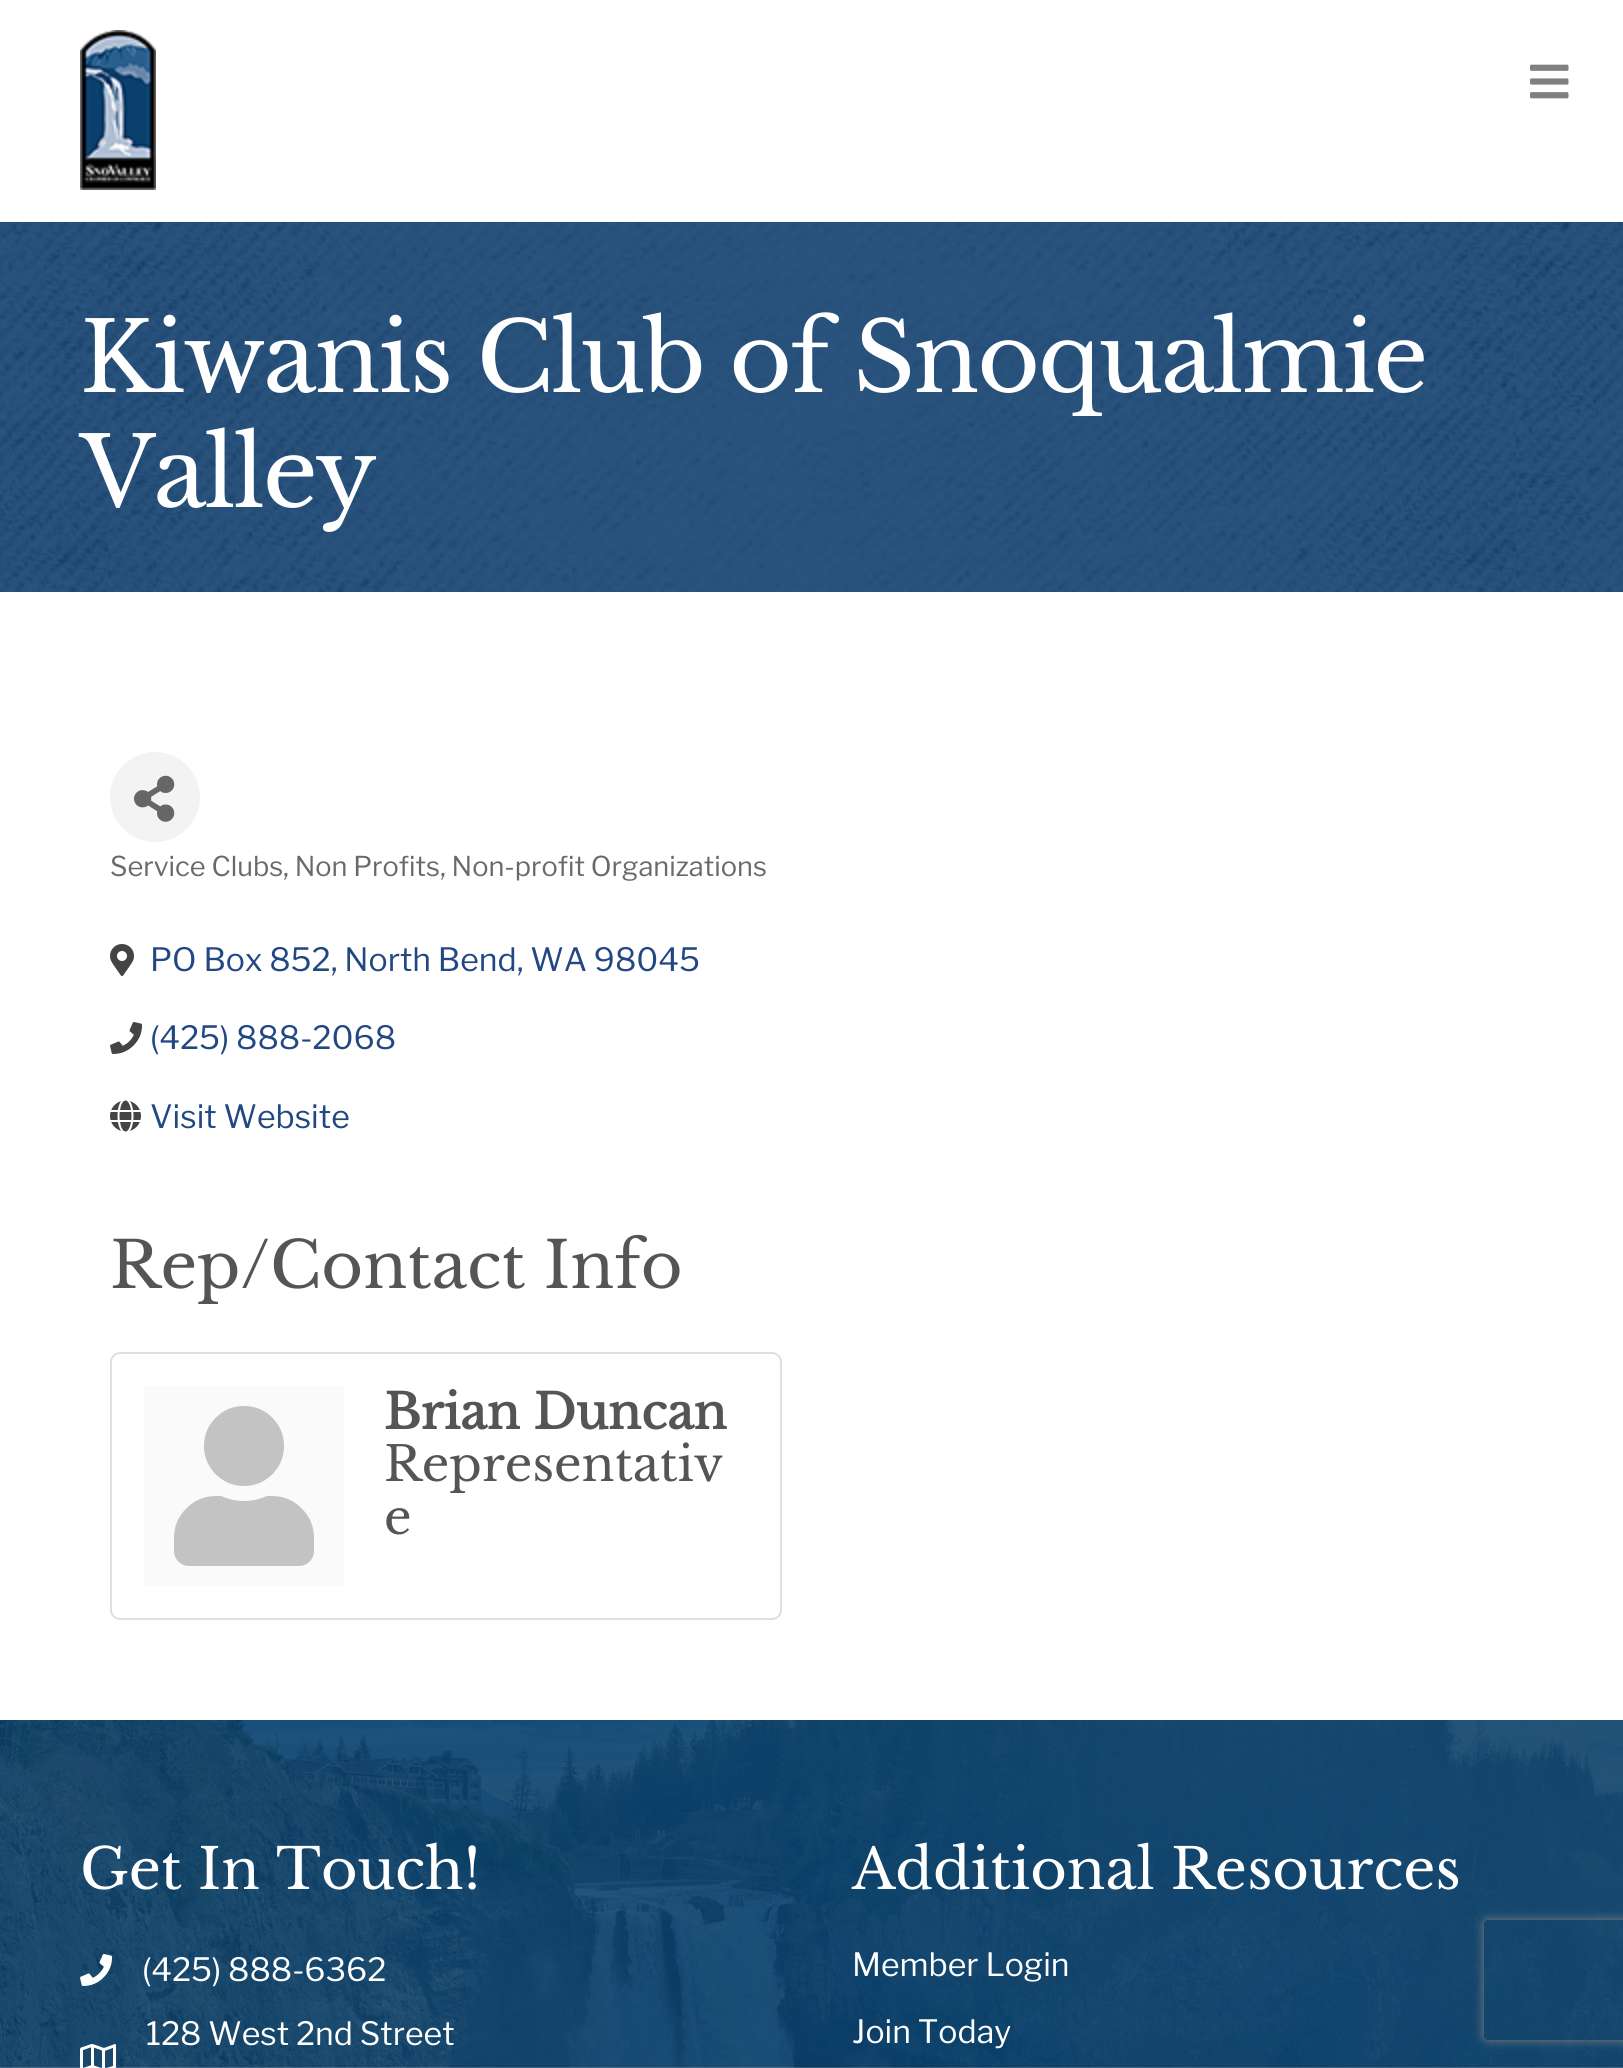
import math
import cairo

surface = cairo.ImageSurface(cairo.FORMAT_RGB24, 1623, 2068)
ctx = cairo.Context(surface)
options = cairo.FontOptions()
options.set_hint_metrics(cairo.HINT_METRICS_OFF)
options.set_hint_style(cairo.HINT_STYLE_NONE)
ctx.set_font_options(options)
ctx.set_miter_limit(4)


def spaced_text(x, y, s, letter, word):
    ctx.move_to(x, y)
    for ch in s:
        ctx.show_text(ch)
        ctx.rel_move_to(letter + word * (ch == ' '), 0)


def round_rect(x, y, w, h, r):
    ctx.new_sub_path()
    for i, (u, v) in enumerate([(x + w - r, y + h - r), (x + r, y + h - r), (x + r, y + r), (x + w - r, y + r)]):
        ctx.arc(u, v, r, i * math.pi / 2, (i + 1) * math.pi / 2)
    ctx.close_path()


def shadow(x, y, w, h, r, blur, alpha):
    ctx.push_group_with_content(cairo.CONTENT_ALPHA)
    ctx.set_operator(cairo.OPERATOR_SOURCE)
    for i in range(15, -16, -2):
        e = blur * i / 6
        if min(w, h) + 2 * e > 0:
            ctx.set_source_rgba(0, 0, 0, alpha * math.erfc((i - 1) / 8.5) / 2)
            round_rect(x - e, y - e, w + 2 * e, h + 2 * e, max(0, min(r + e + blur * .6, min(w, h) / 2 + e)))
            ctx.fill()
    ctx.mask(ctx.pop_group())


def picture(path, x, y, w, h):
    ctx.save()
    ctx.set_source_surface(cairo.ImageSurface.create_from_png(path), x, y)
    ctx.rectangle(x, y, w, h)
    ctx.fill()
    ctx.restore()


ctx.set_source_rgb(1, 1, 1)
ctx.paint()
picture("img1.png", 80, 30, 76, 160)
picture("img2.png", 1530, 64, 39, 35)
picture("img3.png", 0, 222, 1623, 370)
ctx.select_font_face("Libre Baskerville")
ctx.set_font_size(96)
ctx.set_source_rgb(1, 1, 1)
spaced_text(80, 392, "Kiwanis Club of Snoqualmie", -2, 0)
spaced_text(80, 507, "Valley", -2, 0)
ctx.set_source_rgb(0.953, 0.953, 0.953)
ctx.new_path()
ctx.arc(155, 797, 45, 0, 2 * math.pi)
ctx.fill()
picture("img4.png", 134, 775, 41, 47)
ctx.select_font_face("Libre Franklin")
ctx.set_font_size(27.2)
ctx.set_source_rgb(0.412, 0.412, 0.412)
ctx.move_to(110, 876)
ctx.show_text("Service Clubs, Non Profits, Non-profit Organizations")
picture("img5.png", 110, 944, 24, 32)
ctx.set_font_size(32)
ctx.set_source_rgb(0.133, 0.282, 0.518)
ctx.move_to(150, 971)
ctx.show_text("PO Box 852, North Bend, WA 98045")
picture("img6.png", 110, 1022, 33, 32)
ctx.move_to(150, 1049)
ctx.show_text("(425) 888-2068")
picture("img7.png", 110, 1100, 31, 32)
ctx.move_to(150, 1128)
ctx.show_text("Visit Website")
ctx.select_font_face("Libre Baskerville")
ctx.set_font_size(64)
ctx.set_source_rgb(0.333, 0.333, 0.333)
ctx.move_to(110, 1288)
ctx.show_text("Rep/Contact Info")
round_rect(111, 1353, 670, 266, 9)
ctx.set_source_rgb(0.875, 0.875, 0.875)
ctx.stroke()
ctx.set_source_rgb(0.98, 0.98, 0.98)
ctx.rectangle(144, 1386, 200, 200)
ctx.fill()
picture("img8.png", 174, 1406, 140, 160)
ctx.select_font_face("Libre Baskerville", cairo.FONT_SLANT_NORMAL, cairo.FONT_WEIGHT_BOLD)
ctx.set_font_size(48)
ctx.set_source_rgb(0.333, 0.333, 0.333)
ctx.move_to(384, 1429)
ctx.show_text("Brian Duncan")
ctx.select_font_face("Libre Baskerville")
ctx.move_to(384, 1481)
ctx.show_text("Representativ")
ctx.move_to(384, 1534)
ctx.show_text("e")
picture("img9.png", 0, 1720, 1623, 348)
ctx.set_font_size(56)
ctx.set_source_rgb(1, 1, 1)
ctx.move_to(80, 1889)
ctx.show_text("Get In Touch!")
picture("img10.png", 80, 1954, 33, 32)
ctx.select_font_face("Libre Franklin")
ctx.set_font_size(32)
ctx.move_to(142, 1981)
ctx.show_text("(425) 888-6362")
ctx.move_to(146, 2045)
ctx.show_text("128 West 2nd Street")
picture("img11.png", 80, 2044, 36, 24)
ctx.select_font_face("Libre Baskerville")
ctx.set_font_size(56)
ctx.move_to(852, 1889)
ctx.show_text("Additional Resources")
ctx.select_font_face("Libre Franklin")
ctx.set_font_size(32)
ctx.move_to(852, 1976)
ctx.show_text("Member Login")
ctx.move_to(852, 2043)
ctx.show_text("Join Today")
ctx.save()
ctx.set_fill_rule(cairo.FILL_RULE_EVEN_ODD)
ctx.new_path()
ctx.move_to(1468, 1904)
ctx.line_to(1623, 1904)
ctx.line_to(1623, 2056)
ctx.line_to(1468, 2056)
ctx.close_path()
ctx.move_to(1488, 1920)
ctx.line_to(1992, 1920)
ctx.curve_to(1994, 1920, 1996, 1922, 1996, 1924)
ctx.line_to(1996, 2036)
ctx.curve_to(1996, 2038, 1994, 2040, 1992, 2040)
ctx.line_to(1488, 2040)
ctx.curve_to(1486, 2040, 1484, 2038, 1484, 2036)
ctx.line_to(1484, 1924)
ctx.curve_to(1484, 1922, 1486, 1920, 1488, 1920)
ctx.close_path()
ctx.clip()
ctx.set_source_rgb(0.502, 0.502, 0.502)
shadow(1484, 1920, 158, 120, 4, 5, 1)
ctx.restore()
surface.write_to_png("page.png")
